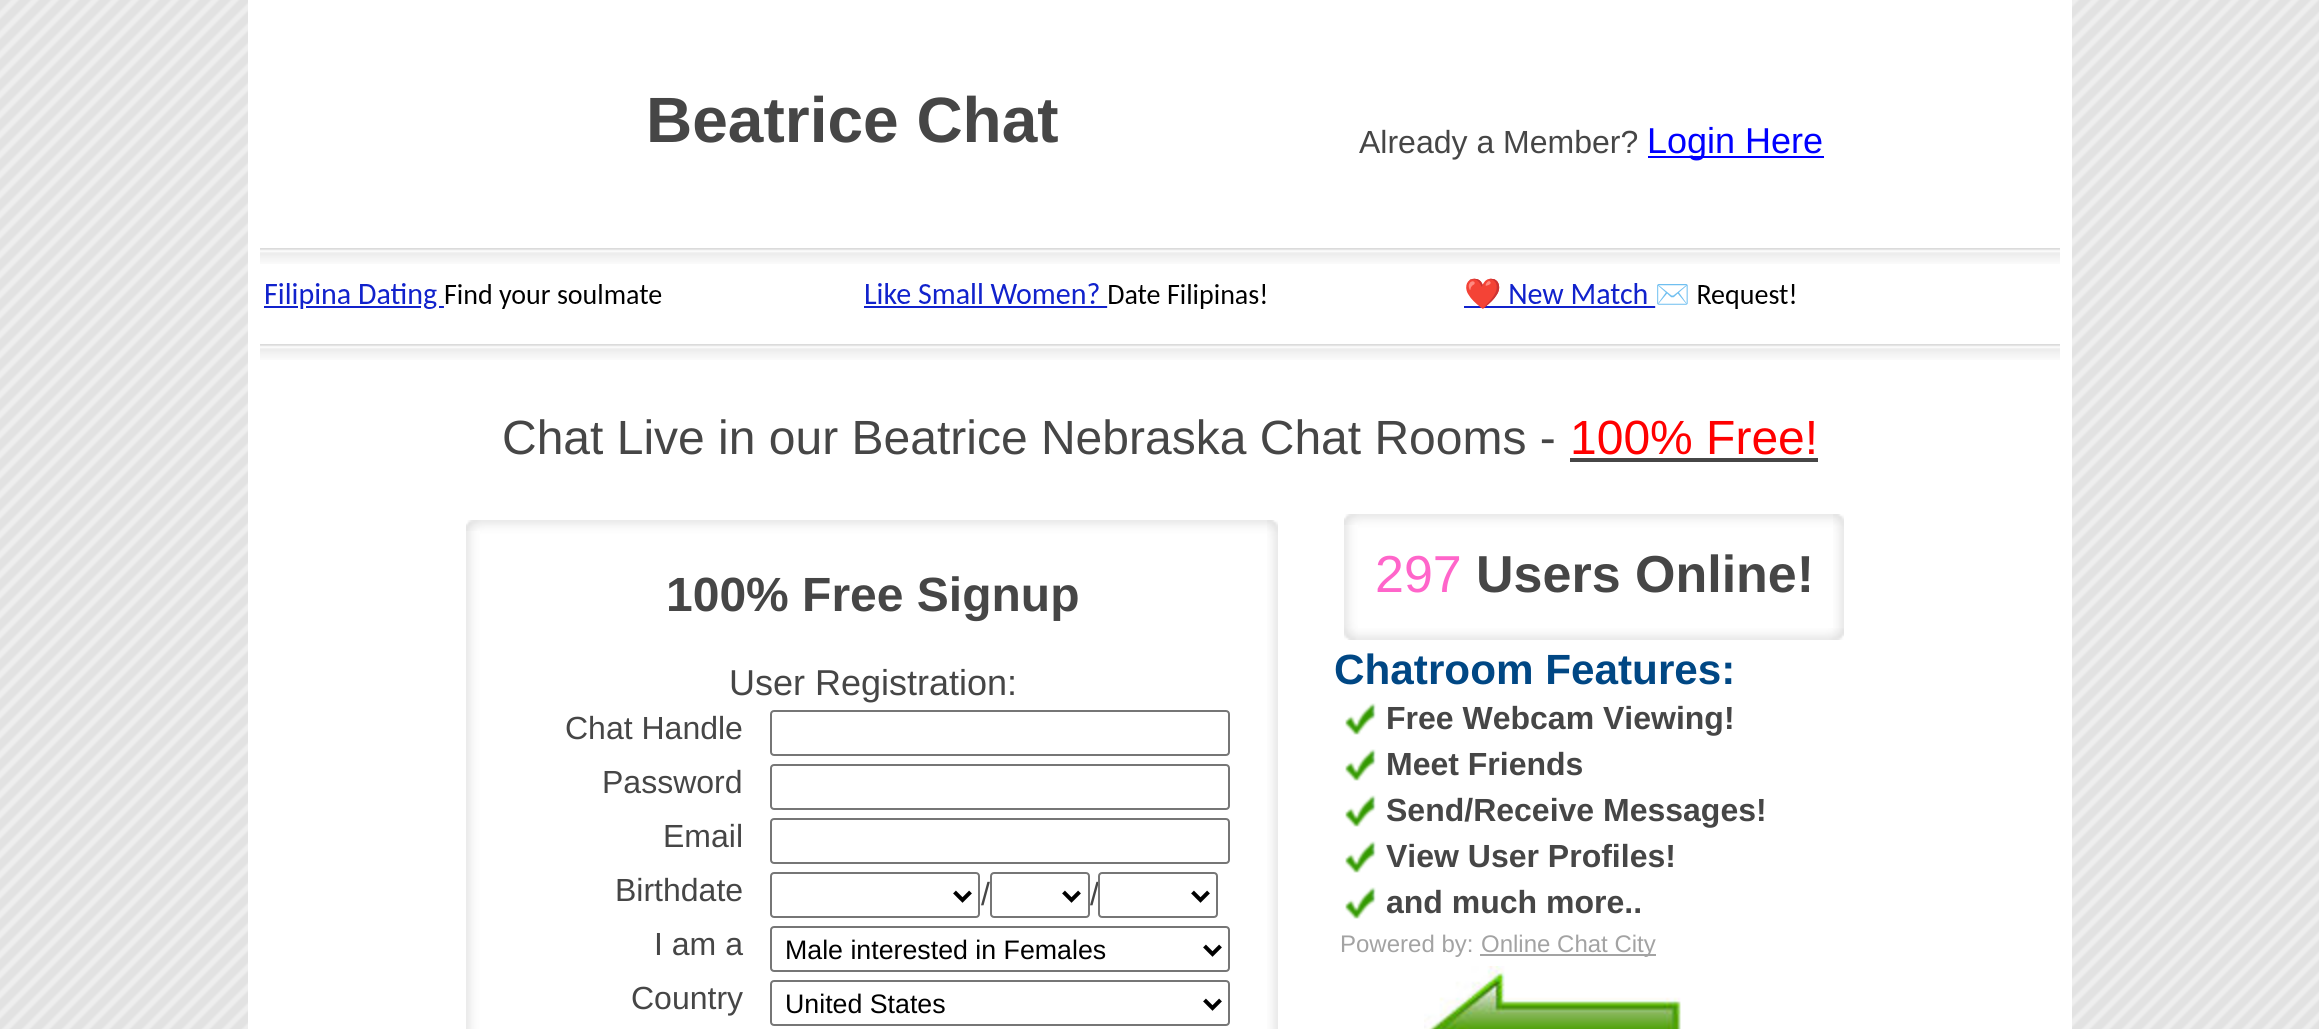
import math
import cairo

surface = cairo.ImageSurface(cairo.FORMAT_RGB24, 2319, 1029)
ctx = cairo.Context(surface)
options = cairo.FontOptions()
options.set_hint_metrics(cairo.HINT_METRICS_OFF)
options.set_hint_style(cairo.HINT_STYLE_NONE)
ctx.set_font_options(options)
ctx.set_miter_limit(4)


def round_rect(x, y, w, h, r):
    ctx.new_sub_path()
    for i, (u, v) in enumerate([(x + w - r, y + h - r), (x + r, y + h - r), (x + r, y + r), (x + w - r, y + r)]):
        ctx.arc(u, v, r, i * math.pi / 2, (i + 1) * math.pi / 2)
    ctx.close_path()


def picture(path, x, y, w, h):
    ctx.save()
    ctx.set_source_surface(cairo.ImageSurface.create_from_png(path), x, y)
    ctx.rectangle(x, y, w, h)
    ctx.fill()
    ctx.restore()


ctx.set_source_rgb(1, 1, 1)
ctx.paint()
picture("img1.png", 0, 0, 2319, 1029)
ctx.set_source_rgb(1, 1, 1)
ctx.rectangle(248, 0, 1824, 1029)
ctx.fill()
ctx.select_font_face("Liberation Sans", cairo.FONT_SLANT_NORMAL, cairo.FONT_WEIGHT_BOLD)
ctx.set_font_size(64)
ctx.set_source_rgb(0.275, 0.275, 0.275)
ctx.move_to(646, 142)
ctx.show_text("Beatrice Chat")
ctx.select_font_face("Liberation Sans")
ctx.set_font_size(32)
ctx.move_to(1359, 153)
ctx.show_text("Already a Member?")
ctx.set_source_rgb(0, 0, 1)
ctx.rectangle(1648, 156, 176, 2)
ctx.fill()
ctx.set_font_size(36)
ctx.move_to(1647, 153)
ctx.show_text("Login Here")
picture("img2.png", 260, 248, 1800, 16)
picture("img3.png", 264, 278, 1531, 31)
picture("img2.png", 260, 344, 1800, 16)
ctx.set_font_size(48)
ctx.set_source_rgb(0.275, 0.275, 0.275)
ctx.move_to(502, 454)
ctx.show_text("Chat Live in our Beatrice Nebraska Chat Rooms -")
ctx.set_source_rgb(1, 0, 0)
ctx.move_to(1570, 454)
ctx.show_text("100% Free!")
ctx.set_source_rgb(0.275, 0.275, 0.275)
ctx.rectangle(1570, 458, 248, 4)
ctx.fill()
picture("img4.png", 480, 520, 787, 14)
picture("img5.png", 1267, 520, 11, 509)
picture("img6.png", 466, 531, 14, 498)
picture("img7.png", 466, 520, 14, 11)
ctx.select_font_face("Liberation Sans", cairo.FONT_SLANT_NORMAL, cairo.FONT_WEIGHT_BOLD)
ctx.move_to(666, 611)
ctx.show_text("100% Free Signup")
ctx.select_font_face("Liberation Sans")
ctx.set_font_size(36)
ctx.move_to(729, 695)
ctx.show_text("User Registration:")
ctx.set_font_size(32)
ctx.move_to(565, 739)
ctx.show_text("Chat Handle")
round_rect(771, 711, 458, 44, 3)
ctx.set_source_rgb(0.463, 0.463, 0.463)
ctx.stroke()
ctx.set_source_rgb(0.275, 0.275, 0.275)
ctx.move_to(602, 793)
ctx.show_text("Password")
round_rect(771, 765, 458, 44, 3)
ctx.set_source_rgb(0.463, 0.463, 0.463)
ctx.stroke()
ctx.set_source_rgb(0.275, 0.275, 0.275)
ctx.move_to(663, 847)
ctx.show_text("Email")
round_rect(771, 819, 458, 44, 3)
ctx.set_source_rgb(0.463, 0.463, 0.463)
ctx.stroke()
ctx.set_source_rgb(0.275, 0.275, 0.275)
ctx.move_to(615, 901)
ctx.show_text("Birthdate")
round_rect(771, 873, 208, 44, 3)
ctx.set_source_rgb(0.463, 0.463, 0.463)
ctx.stroke()
ctx.new_path()
ctx.move_to(954.5, 892)
ctx.line_to(962.5, 900)
ctx.line_to(970.5, 892)
ctx.set_source_rgb(0, 0, 0)
ctx.set_line_width(4)
ctx.stroke()
ctx.set_source_rgb(0.275, 0.275, 0.275)
ctx.move_to(981, 905)
ctx.show_text("/")
round_rect(991, 873, 98, 44, 3)
ctx.set_source_rgb(0.463, 0.463, 0.463)
ctx.set_line_width(2)
ctx.stroke()
ctx.new_path()
ctx.move_to(1063.5, 892)
ctx.line_to(1071.5, 900)
ctx.line_to(1079.5, 892)
ctx.set_source_rgb(0, 0, 0)
ctx.set_line_width(4)
ctx.stroke()
ctx.set_source_rgb(0.275, 0.275, 0.275)
ctx.move_to(1090, 905)
ctx.show_text("/")
ctx.set_source_rgb(1, 1, 1)
round_rect(1099, 873, 118, 44, 3)
ctx.fill_preserve()
ctx.set_source_rgb(0.463, 0.463, 0.463)
ctx.set_line_width(2)
ctx.stroke()
ctx.new_path()
ctx.move_to(1192.5, 892)
ctx.line_to(1200.5, 900)
ctx.line_to(1208.5, 892)
ctx.set_source_rgb(0, 0, 0)
ctx.set_line_width(4)
ctx.stroke()
ctx.set_source_rgb(0.275, 0.275, 0.275)
ctx.move_to(654, 955)
ctx.show_text("I am a")
round_rect(771, 927, 458, 44, 3)
ctx.set_source_rgb(0.463, 0.463, 0.463)
ctx.set_line_width(2)
ctx.stroke()
ctx.new_path()
ctx.move_to(1204.5, 946)
ctx.line_to(1212.5, 954)
ctx.line_to(1220.5, 946)
ctx.set_source_rgb(0, 0, 0)
ctx.set_line_width(4)
ctx.stroke()
ctx.set_font_size(26.75)
ctx.move_to(785, 959)
ctx.show_text("Male interested in Females")
ctx.set_font_size(32)
ctx.set_source_rgb(0.275, 0.275, 0.275)
ctx.move_to(631, 1009)
ctx.show_text("Country")
round_rect(771, 981, 458, 44, 3)
ctx.set_source_rgb(0.463, 0.463, 0.463)
ctx.set_line_width(2)
ctx.stroke()
ctx.new_path()
ctx.move_to(1204.5, 1000)
ctx.line_to(1212.5, 1008)
ctx.line_to(1220.5, 1000)
ctx.set_source_rgb(0, 0, 0)
ctx.set_line_width(4)
ctx.stroke()
ctx.set_font_size(26.75)
ctx.move_to(785, 1013)
ctx.show_text("United States")
picture("img8.png", 1358, 514, 475, 14)
picture("img9.png", 1833, 514, 11, 114)
picture("img10.png", 1358, 628, 486, 12)
picture("img11.png", 1344, 525, 14, 115)
picture("img7.png", 1344, 514, 14, 11)
ctx.set_font_size(52)
ctx.set_source_rgb(1, 0.396, 0.792)
ctx.move_to(1375, 592)
ctx.show_text("297")
ctx.select_font_face("Liberation Sans", cairo.FONT_SLANT_NORMAL, cairo.FONT_WEIGHT_BOLD)
ctx.set_source_rgb(0.275, 0.275, 0.275)
ctx.move_to(1476, 592)
ctx.show_text("Users Online!")
ctx.set_font_size(42.25)
ctx.set_source_rgb(0, 0.278, 0.518)
ctx.move_to(1334, 684)
ctx.show_text("Chatroom Features:")
picture("img12.png", 1345, 703, 31, 32)
ctx.set_font_size(32)
ctx.set_source_rgb(0.275, 0.275, 0.275)
ctx.move_to(1386, 729)
ctx.show_text("Free Webcam Viewing!")
picture("img12.png", 1345, 749, 31, 32)
ctx.move_to(1386, 775)
ctx.show_text("Meet Friends")
picture("img12.png", 1345, 795, 31, 32)
ctx.move_to(1386, 821)
ctx.show_text("Send/Receive Messages!")
picture("img12.png", 1345, 841, 31, 32)
ctx.move_to(1386, 867)
ctx.show_text("View User Profiles!")
picture("img12.png", 1345, 887, 31, 32)
ctx.move_to(1386, 913)
ctx.show_text("and much more..")
ctx.select_font_face("Liberation Sans")
ctx.set_font_size(24)
ctx.set_source_rgb(0.639, 0.639, 0.639)
ctx.move_to(1340, 952)
ctx.show_text("Powered by:")
ctx.rectangle(1480, 954, 176, 2)
ctx.fill()
ctx.move_to(1481, 952)
ctx.show_text("Online Chat City")
picture("img13.png", 1424, 966, 257, 63)
surface.write_to_png("page.png")
